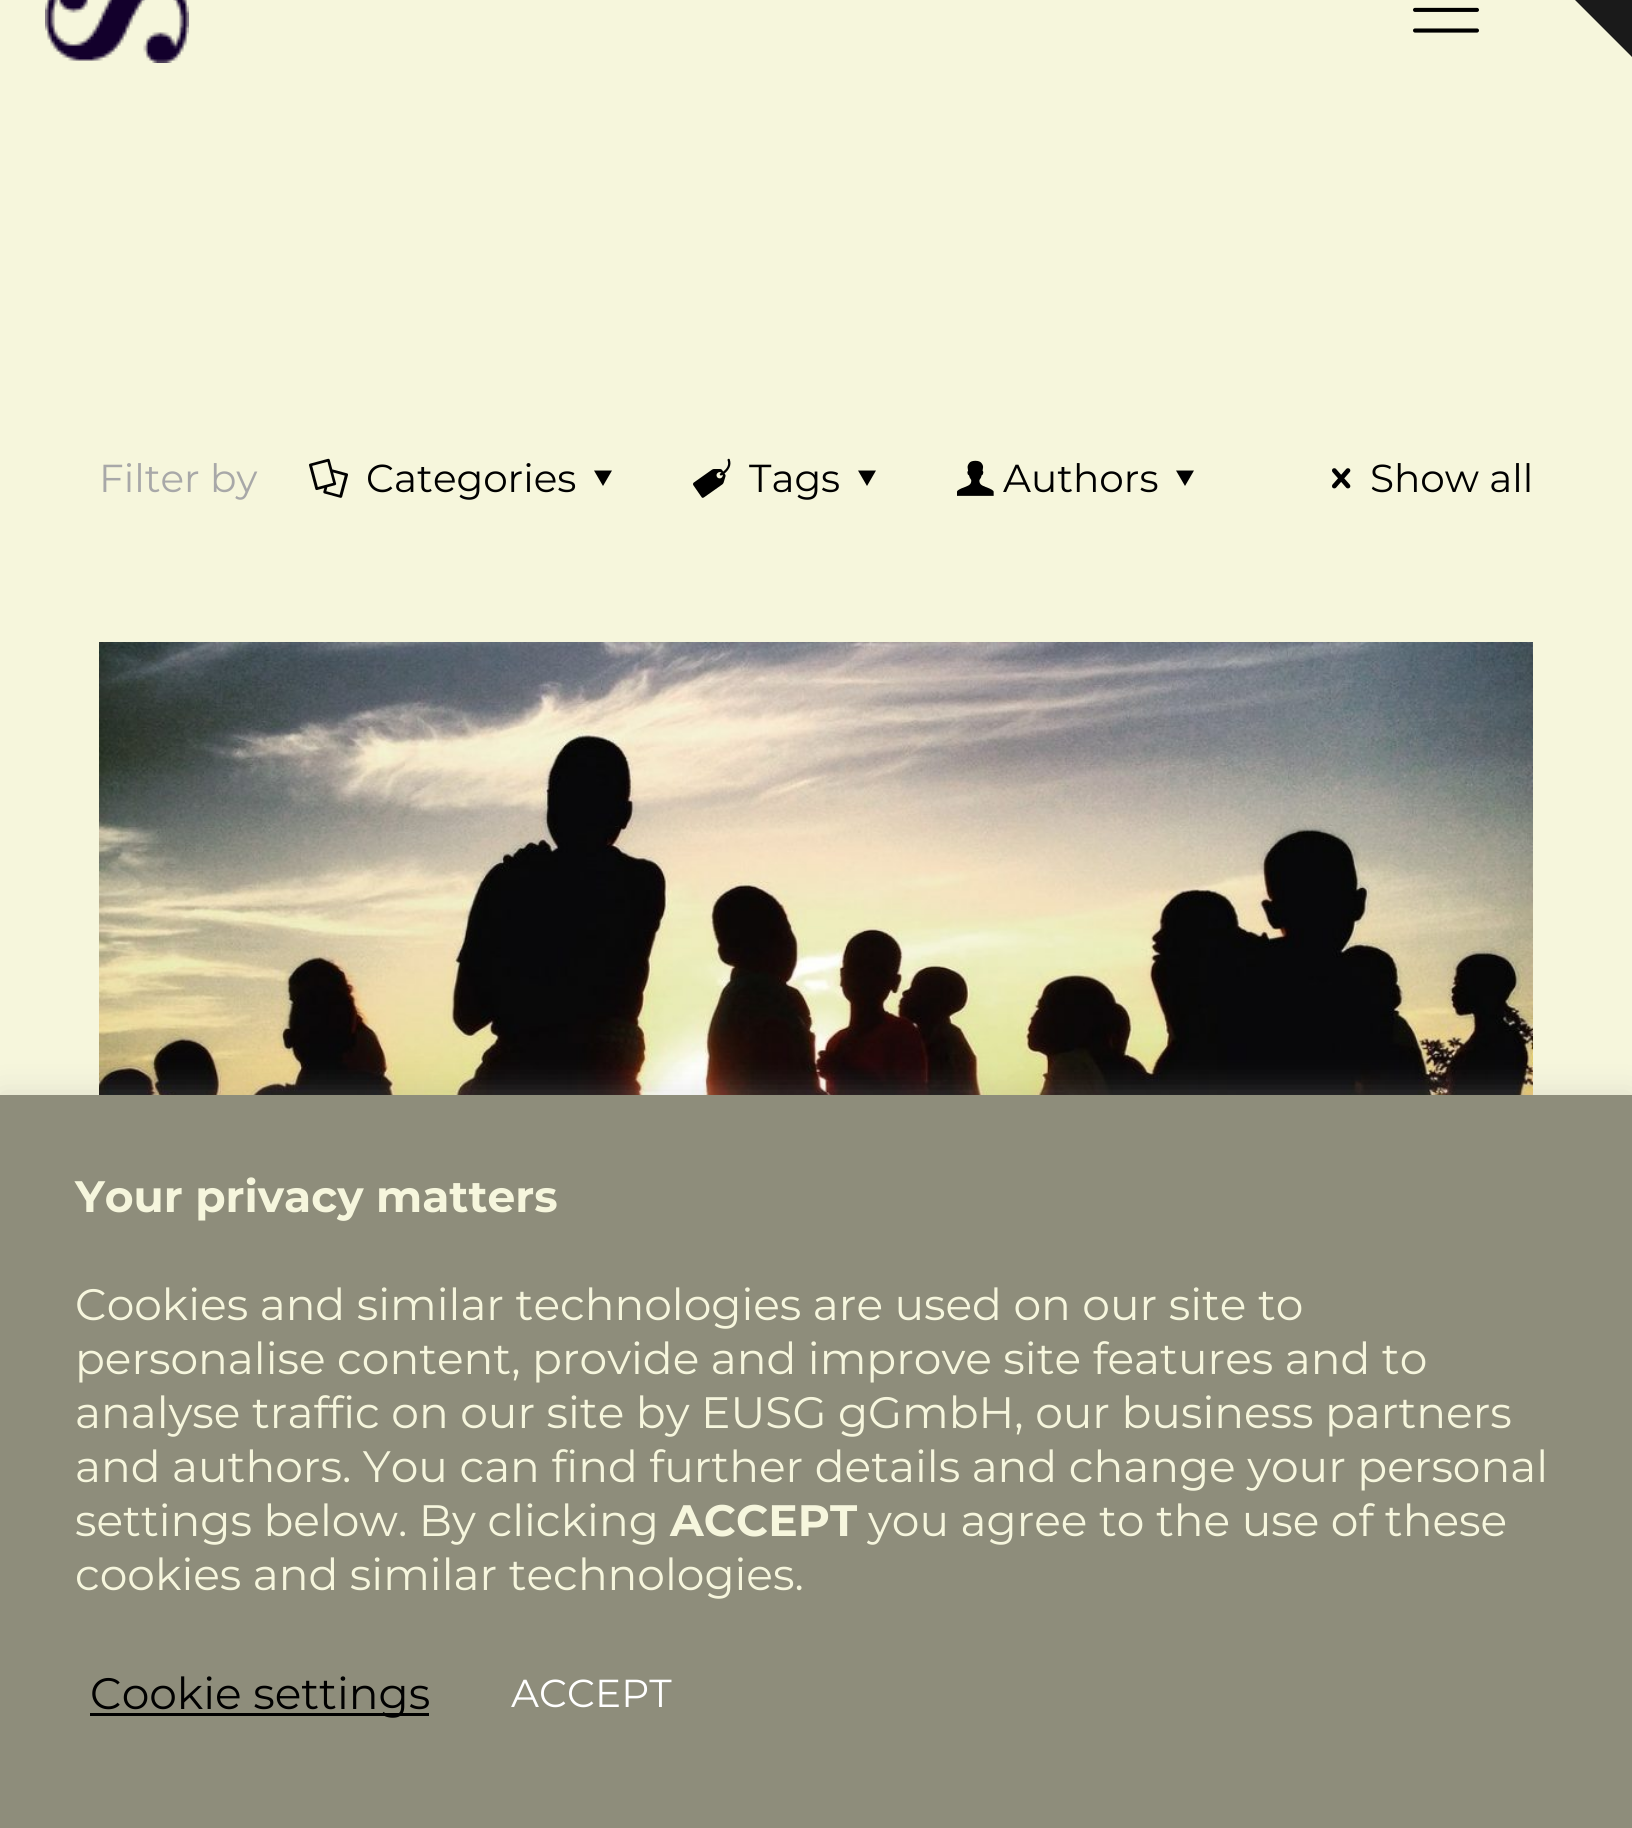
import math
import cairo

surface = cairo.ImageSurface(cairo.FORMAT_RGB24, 1632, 1828)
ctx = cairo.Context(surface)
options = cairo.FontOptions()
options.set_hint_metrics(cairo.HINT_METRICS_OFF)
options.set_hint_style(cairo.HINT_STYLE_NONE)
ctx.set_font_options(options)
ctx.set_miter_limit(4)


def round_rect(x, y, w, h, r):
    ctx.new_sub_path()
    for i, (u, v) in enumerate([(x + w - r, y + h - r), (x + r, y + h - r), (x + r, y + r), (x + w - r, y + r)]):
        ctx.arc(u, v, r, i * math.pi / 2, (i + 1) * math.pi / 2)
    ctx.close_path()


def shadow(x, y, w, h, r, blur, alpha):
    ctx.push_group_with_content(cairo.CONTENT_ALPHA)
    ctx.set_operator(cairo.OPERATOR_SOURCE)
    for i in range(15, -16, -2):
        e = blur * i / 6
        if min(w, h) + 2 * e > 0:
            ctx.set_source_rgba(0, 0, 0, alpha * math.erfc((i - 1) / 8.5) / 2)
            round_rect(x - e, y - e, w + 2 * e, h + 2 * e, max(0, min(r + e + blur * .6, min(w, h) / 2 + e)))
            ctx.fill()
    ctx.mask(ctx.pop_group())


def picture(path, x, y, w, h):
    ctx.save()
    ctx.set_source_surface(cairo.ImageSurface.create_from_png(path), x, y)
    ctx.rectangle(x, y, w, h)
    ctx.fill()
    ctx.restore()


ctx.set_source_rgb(0.961, 0.961, 0.863)
ctx.paint()
picture("img1.png", 45, 0, 144, 63)
picture("img2.png", 1413, 7, 66, 26)
ctx.set_source_rgb(0.102, 0.102, 0.102)
ctx.new_path()
ctx.move_to(1632, -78)
ctx.line_to(1632, 57)
ctx.line_to(1497, -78)
ctx.close_path()
ctx.fill()
ctx.select_font_face("Montserrat")
ctx.set_font_size(39)
ctx.set_source_rgb(0.659, 0.659, 0.659)
ctx.move_to(99, 492)
ctx.show_text("Filter by")
picture("img3.png", 309, 458, 39, 40)
ctx.set_source_rgb(0, 0, 0)
ctx.move_to(366, 492)
ctx.show_text("Categories")
ctx.new_path()
ctx.move_to(612, 470.5)
ctx.line_to(603, 486)
ctx.line_to(594, 470.5)
ctx.close_path()
ctx.fill()
picture("img4.png", 693, 458, 38, 40)
ctx.move_to(749, 492)
ctx.show_text("Tags")
ctx.new_path()
ctx.move_to(876, 470.5)
ctx.line_to(867, 486)
ctx.line_to(858, 470.5)
ctx.close_path()
ctx.fill()
picture("img5.png", 957, 460, 37, 36)
ctx.move_to(1003, 492)
ctx.show_text("Authors")
ctx.new_path()
ctx.move_to(1194, 470.5)
ctx.line_to(1185, 486)
ctx.line_to(1176, 470.5)
ctx.close_path()
ctx.fill()
picture("img6.png", 1332, 468, 19, 21)
ctx.move_to(1370, 492)
ctx.show_text("Show all")
picture("img7.png", 99, 642, 1434, 453)
ctx.set_source_rgb(0.675, 0.671, 0.671)
shadow(0, 1092, 1632, 735, 0, 15, 0.3)
ctx.set_source_rgb(0.557, 0.553, 0.482)
ctx.rectangle(0, 1095, 1632, 733)
ctx.fill()
ctx.select_font_face("Montserrat", cairo.FONT_SLANT_NORMAL, cairo.FONT_WEIGHT_BOLD)
ctx.set_font_size(44)
ctx.set_source_rgb(0.961, 0.961, 0.867)
ctx.move_to(75, 1212)
ctx.show_text("Your privacy matters")
ctx.select_font_face("Montserrat")
ctx.move_to(75, 1320)
ctx.show_text("Cookies and similar technologies are used on our site to")
ctx.move_to(75, 1374)
ctx.show_text("personalise content, provide and improve site features and to")
ctx.move_to(75, 1428)
ctx.show_text("analyse traffic on our site by EUSG gGmbH, our business partners")
ctx.move_to(75, 1482)
ctx.show_text("and authors. You can find further details and change your personal")
ctx.move_to(75, 1536)
ctx.show_text("settings below. By clicking")
ctx.select_font_face("Montserrat", cairo.FONT_SLANT_NORMAL, cairo.FONT_WEIGHT_BOLD)
ctx.move_to(670, 1536)
ctx.show_text("ACCEPT")
ctx.select_font_face("Montserrat")
ctx.move_to(868, 1536)
ctx.show_text("you agree to the use of these")
ctx.move_to(75, 1590)
ctx.show_text("cookies and similar technologies.")
ctx.set_source_rgb(0, 0, 0)
ctx.rectangle(90, 1713, 339, 3)
ctx.fill()
ctx.move_to(90, 1709)
ctx.show_text("Cookie settings")
ctx.set_font_size(39)
ctx.set_source_rgb(1, 1, 1)
ctx.move_to(511, 1707)
ctx.show_text("ACCEPT")
surface.write_to_png("page.png")
